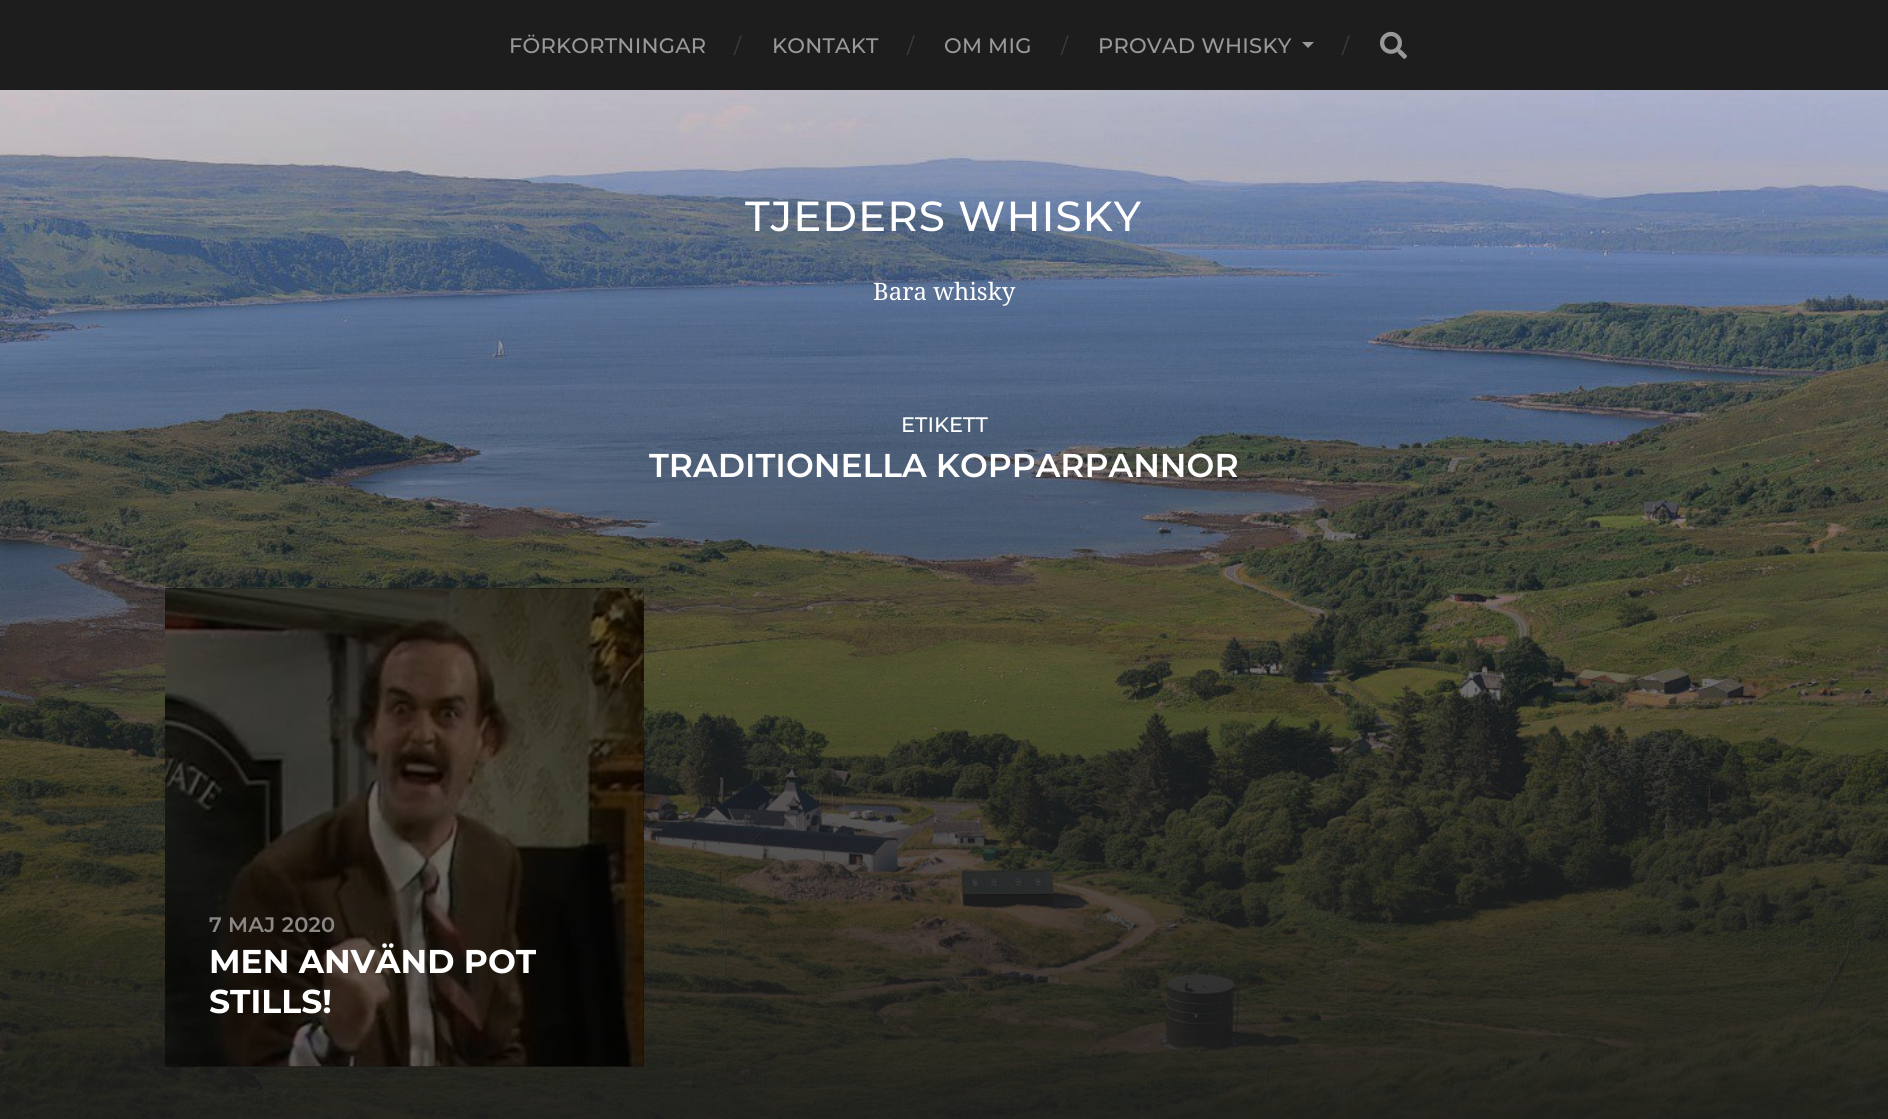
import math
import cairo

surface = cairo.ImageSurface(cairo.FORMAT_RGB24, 1888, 1119)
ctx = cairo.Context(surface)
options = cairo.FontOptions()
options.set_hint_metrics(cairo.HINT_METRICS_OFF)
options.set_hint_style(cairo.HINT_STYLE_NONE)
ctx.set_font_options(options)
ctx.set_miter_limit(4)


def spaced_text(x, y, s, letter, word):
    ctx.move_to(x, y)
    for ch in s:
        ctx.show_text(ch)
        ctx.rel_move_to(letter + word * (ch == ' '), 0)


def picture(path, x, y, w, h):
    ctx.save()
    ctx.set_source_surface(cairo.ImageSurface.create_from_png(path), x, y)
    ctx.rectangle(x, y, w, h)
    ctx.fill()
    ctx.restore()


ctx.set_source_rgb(0.114, 0.114, 0.114)
ctx.paint()
ctx.select_font_face("Montserrat Medium")
ctx.set_font_size(21)
ctx.set_source_rgb(0.6, 0.6, 0.6)
spaced_text(509, 53, "FÖRKORTNINGAR", 0.25, 0)
ctx.select_font_face("Montserrat")
ctx.set_source_rgb(0.239, 0.239, 0.239)
ctx.move_to(734, 53)
ctx.show_text("/")
ctx.select_font_face("Montserrat Medium")
ctx.set_source_rgb(0.6, 0.6, 0.6)
spaced_text(772, 53, "KONTAKT", 0.25, 0)
ctx.select_font_face("Montserrat")
ctx.set_source_rgb(0.239, 0.239, 0.239)
ctx.move_to(907, 53)
ctx.show_text("/")
ctx.select_font_face("Montserrat Medium")
ctx.set_source_rgb(0.6, 0.6, 0.6)
spaced_text(944, 53, "OM MIG", 0.25, 0)
ctx.select_font_face("Montserrat")
ctx.set_source_rgb(0.239, 0.239, 0.239)
ctx.move_to(1061, 53)
ctx.show_text("/")
ctx.select_font_face("Montserrat Medium")
ctx.set_source_rgb(0.6, 0.6, 0.6)
spaced_text(1098, 53, "PROVAD WHISKY", 0.25, 0)
ctx.new_path()
ctx.move_to(1302, 42)
ctx.line_to(1314, 42)
ctx.line_to(1308, 48)
ctx.close_path()
ctx.fill()
ctx.select_font_face("Montserrat")
ctx.set_source_rgb(0.239, 0.239, 0.239)
ctx.move_to(1342, 53)
ctx.show_text("/")
picture("img1.png", 1380, 31, 27, 28)
picture("img2.png", 0, 90, 1888, 1029)
ctx.select_font_face("Montserrat Medium")
ctx.set_font_size(42)
ctx.set_source_rgb(1, 1, 1)
spaced_text(745, 231, "TJEDERS WHISKY", 1, 0)
ctx.select_font_face("Droid Serif")
ctx.set_font_size(24)
ctx.move_to(873, 300)
ctx.show_text("Bara whisky")
ctx.select_font_face("Montserrat Medium")
ctx.set_font_size(21)
ctx.move_to(901, 432)
ctx.show_text("ETIKETT")
ctx.select_font_face("Montserrat SemiBold")
ctx.set_font_size(33)
ctx.move_to(649, 477)
ctx.show_text("TRADITIONELLA KOPPARPANNOR")
picture("img3.png", 165, 588, 479, 479)
ctx.set_source_rgba(0, 0, 0, 0.6)
ctx.rectangle(165, 588, 479, 479)
ctx.fill()
ctx.set_font_size(21)
ctx.set_source_rgb(0.541, 0.529, 0.518)
spaced_text(209, 932, "7 MAJ 2020", 0.25, 0)
ctx.select_font_face("Montserrat", cairo.FONT_SLANT_NORMAL, cairo.FONT_WEIGHT_BOLD)
ctx.set_font_size(33)
ctx.set_source_rgb(1, 1, 1)
ctx.move_to(209, 973)
ctx.show_text("MEN ANVÄND POT")
ctx.move_to(209, 1013)
ctx.show_text("STILLS!")
surface.write_to_png("page.png")
